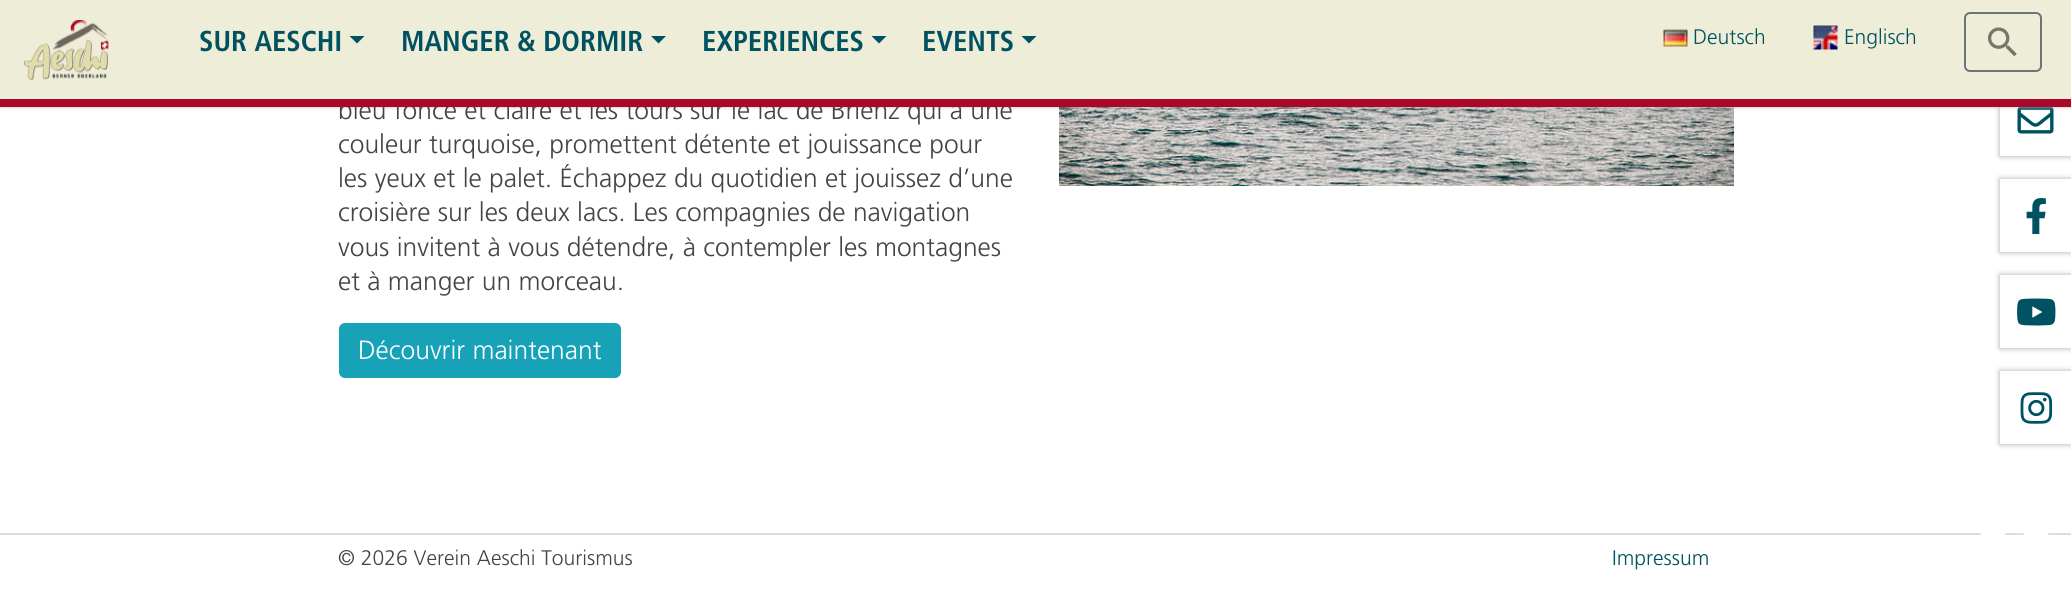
import math
import cairo

surface = cairo.ImageSurface(cairo.FORMAT_RGB24, 2071, 596)
ctx = cairo.Context(surface)
options = cairo.FontOptions()
options.set_hint_metrics(cairo.HINT_METRICS_OFF)
options.set_hint_style(cairo.HINT_STYLE_NONE)
ctx.set_font_options(options)
ctx.set_miter_limit(4)


def round_rect(x, y, w, h, r):
    ctx.new_sub_path()
    for i, (u, v) in enumerate([(x + w - r, y + h - r), (x + r, y + h - r), (x + r, y + r), (x + w - r, y + r)]):
        ctx.arc(u, v, r, i * math.pi / 2, (i + 1) * math.pi / 2)
    ctx.close_path()


def shadow(x, y, w, h, r, blur, alpha):
    ctx.push_group_with_content(cairo.CONTENT_ALPHA)
    ctx.set_operator(cairo.OPERATOR_SOURCE)
    for i in range(15, -16, -2):
        e = blur * i / 6
        if min(w, h) + 2 * e > 0:
            ctx.set_source_rgba(0, 0, 0, alpha * math.erfc((i - 1) / 8.5) / 2)
            round_rect(x - e, y - e, w + 2 * e, h + 2 * e, max(0, min(r + e + blur * .6, min(w, h) / 2 + e)))
            ctx.fill()
    ctx.mask(ctx.pop_group())


def picture(path, x, y, w, h):
    ctx.save()
    ctx.set_source_surface(cairo.ImageSurface.create_from_png(path), x, y)
    ctx.rectangle(x, y, w, h)
    ctx.fill()
    ctx.restore()


ctx.set_source_rgb(1, 1, 1)
ctx.paint()
picture("img5.png", 1059, 107, 675, 79)
ctx.save()
ctx.set_fill_rule(cairo.FILL_RULE_EVEN_ODD)
ctx.new_path()
ctx.move_to(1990, 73)
ctx.line_to(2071, 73)
ctx.line_to(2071, 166)
ctx.line_to(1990, 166)
ctx.close_path()
ctx.move_to(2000, 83)
ctx.line_to(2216, 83)
ctx.line_to(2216, 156)
ctx.line_to(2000, 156)
ctx.close_path()
ctx.clip()
ctx.set_source_rgb(0, 0, 0)
shadow(2000, 83, 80, 73, 0, 3, 0.34)
ctx.restore()
picture("img6.png", 2017, 107, 37, 27)
ctx.set_source_rgb(0.733, 0.733, 0.733)
shadow(0, 0, 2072, 107, 0, 2, 1)
ctx.select_font_face("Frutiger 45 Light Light")
ctx.set_font_size(26.4)
ctx.set_source_rgb(0.267, 0.267, 0.267)
ctx.move_to(338, 119)
ctx.show_text("bleu foncé et claire et les tours sur le lac de Brienz qui a une")
ctx.set_source_rgb(0.933, 0.929, 0.843)
ctx.rectangle(0, 0, 2071, 99)
ctx.fill()
ctx.set_source_rgb(0.667, 0.031, 0.161)
ctx.rectangle(0, 99, 2071, 8)
ctx.fill()
picture("img1.png", 24, 20, 85, 60)
ctx.select_font_face("Frutiger", cairo.FONT_SLANT_NORMAL, cairo.FONT_WEIGHT_BOLD)
ctx.set_font_size(28.75)
ctx.set_source_rgb(0, 0.322, 0.384)
ctx.move_to(199, 51)
ctx.show_text("SUR AESCHI")
ctx.new_path()
ctx.move_to(349.5, 36)
ctx.line_to(364.5, 36)
ctx.line_to(357, 43.5)
ctx.close_path()
ctx.fill()
ctx.move_to(401, 51)
ctx.show_text("MANGER & DORMIR")
ctx.new_path()
ctx.move_to(651, 36)
ctx.line_to(666, 36)
ctx.line_to(658.5, 43.5)
ctx.close_path()
ctx.fill()
ctx.move_to(702, 51)
ctx.show_text("EXPERIENCES")
ctx.new_path()
ctx.move_to(871.5, 36)
ctx.line_to(886.5, 36)
ctx.line_to(879, 43.5)
ctx.close_path()
ctx.fill()
ctx.move_to(922, 51)
ctx.show_text("EVENTS")
ctx.new_path()
ctx.move_to(1021.5, 36)
ctx.line_to(1036.5, 36)
ctx.line_to(1029, 43.5)
ctx.close_path()
ctx.fill()
picture("img2.png", 1663, 29, 25, 18)
ctx.select_font_face("Frutiger 45 Light Light")
ctx.set_font_size(21.1)
ctx.move_to(1693, 44)
ctx.show_text("Deutsch")
picture("img3.png", 1813, 25, 25, 25)
ctx.move_to(1844, 44)
ctx.show_text("Englisch")
round_rect(1965, 13, 76, 58, 5)
ctx.set_source_rgb(0.424, 0.459, 0.49)
ctx.stroke()
picture("img4.png", 1988, 27, 29, 30)
ctx.set_font_size(26.4)
ctx.set_source_rgb(0.267, 0.267, 0.267)
ctx.move_to(338, 153)
ctx.show_text("couleur turquoise, promettent détente et jouissance pour")
ctx.move_to(338, 187)
ctx.show_text("les yeux et le palet. Échappez du quotidien et jouissez d’une")
ctx.move_to(338, 221)
ctx.show_text("croisière sur les deux lacs. Les compagnies de navigation")
ctx.move_to(338, 256)
ctx.show_text("vous invitent à vous détendre, à contempler les montagnes")
ctx.move_to(338, 290)
ctx.show_text("et à manger un morceau.")
ctx.set_source_rgb(0.09, 0.635, 0.722)
round_rect(340, 324, 280, 53, 5)
ctx.fill_preserve()
ctx.stroke()
ctx.set_source_rgb(1, 1, 1)
ctx.move_to(358, 359)
ctx.show_text("Découvrir maintenant")
ctx.set_source_rgb(0.867, 0.867, 0.867)
ctx.rectangle(0, 533, 2071, 2)
ctx.fill()
ctx.save()
ctx.set_fill_rule(cairo.FILL_RULE_EVEN_ODD)
ctx.new_path()
ctx.move_to(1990, 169)
ctx.line_to(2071, 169)
ctx.line_to(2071, 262)
ctx.line_to(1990, 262)
ctx.close_path()
ctx.move_to(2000, 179)
ctx.line_to(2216, 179)
ctx.line_to(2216, 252)
ctx.line_to(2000, 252)
ctx.close_path()
ctx.clip()
ctx.set_source_rgb(0, 0, 0)
shadow(2000, 179, 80, 73, 0, 3, 0.34)
ctx.restore()
picture("img7.png", 2026, 198, 20, 36)
ctx.save()
ctx.set_fill_rule(cairo.FILL_RULE_EVEN_ODD)
ctx.new_path()
ctx.move_to(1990, 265)
ctx.line_to(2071, 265)
ctx.line_to(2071, 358)
ctx.line_to(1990, 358)
ctx.close_path()
ctx.move_to(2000, 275)
ctx.line_to(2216, 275)
ctx.line_to(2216, 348)
ctx.line_to(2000, 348)
ctx.close_path()
ctx.clip()
ctx.set_source_rgb(0, 0, 0)
shadow(2000, 275, 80, 73, 0, 3, 0.34)
ctx.restore()
picture("img8.png", 2017, 298, 39, 28)
ctx.save()
ctx.set_fill_rule(cairo.FILL_RULE_EVEN_ODD)
ctx.new_path()
ctx.move_to(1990, 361)
ctx.line_to(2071, 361)
ctx.line_to(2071, 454)
ctx.line_to(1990, 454)
ctx.close_path()
ctx.move_to(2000, 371)
ctx.line_to(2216, 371)
ctx.line_to(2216, 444)
ctx.line_to(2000, 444)
ctx.close_path()
ctx.clip()
ctx.set_source_rgb(0, 0, 0)
shadow(2000, 371, 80, 73, 0, 3, 0.34)
ctx.restore()
picture("img9.png", 2020, 392, 33, 32)
ctx.set_font_size(21.1)
ctx.set_source_rgb(0.267, 0.267, 0.267)
ctx.move_to(338, 565)
ctx.show_text("© 2026 Verein Aeschi Tourismus")
ctx.set_source_rgb(0, 0.322, 0.384)
ctx.move_to(1612, 565)
ctx.show_text("Impressum")
picture("img10.png", 1980, 533, 69, 2)
surface.write_to_png("page.png")
